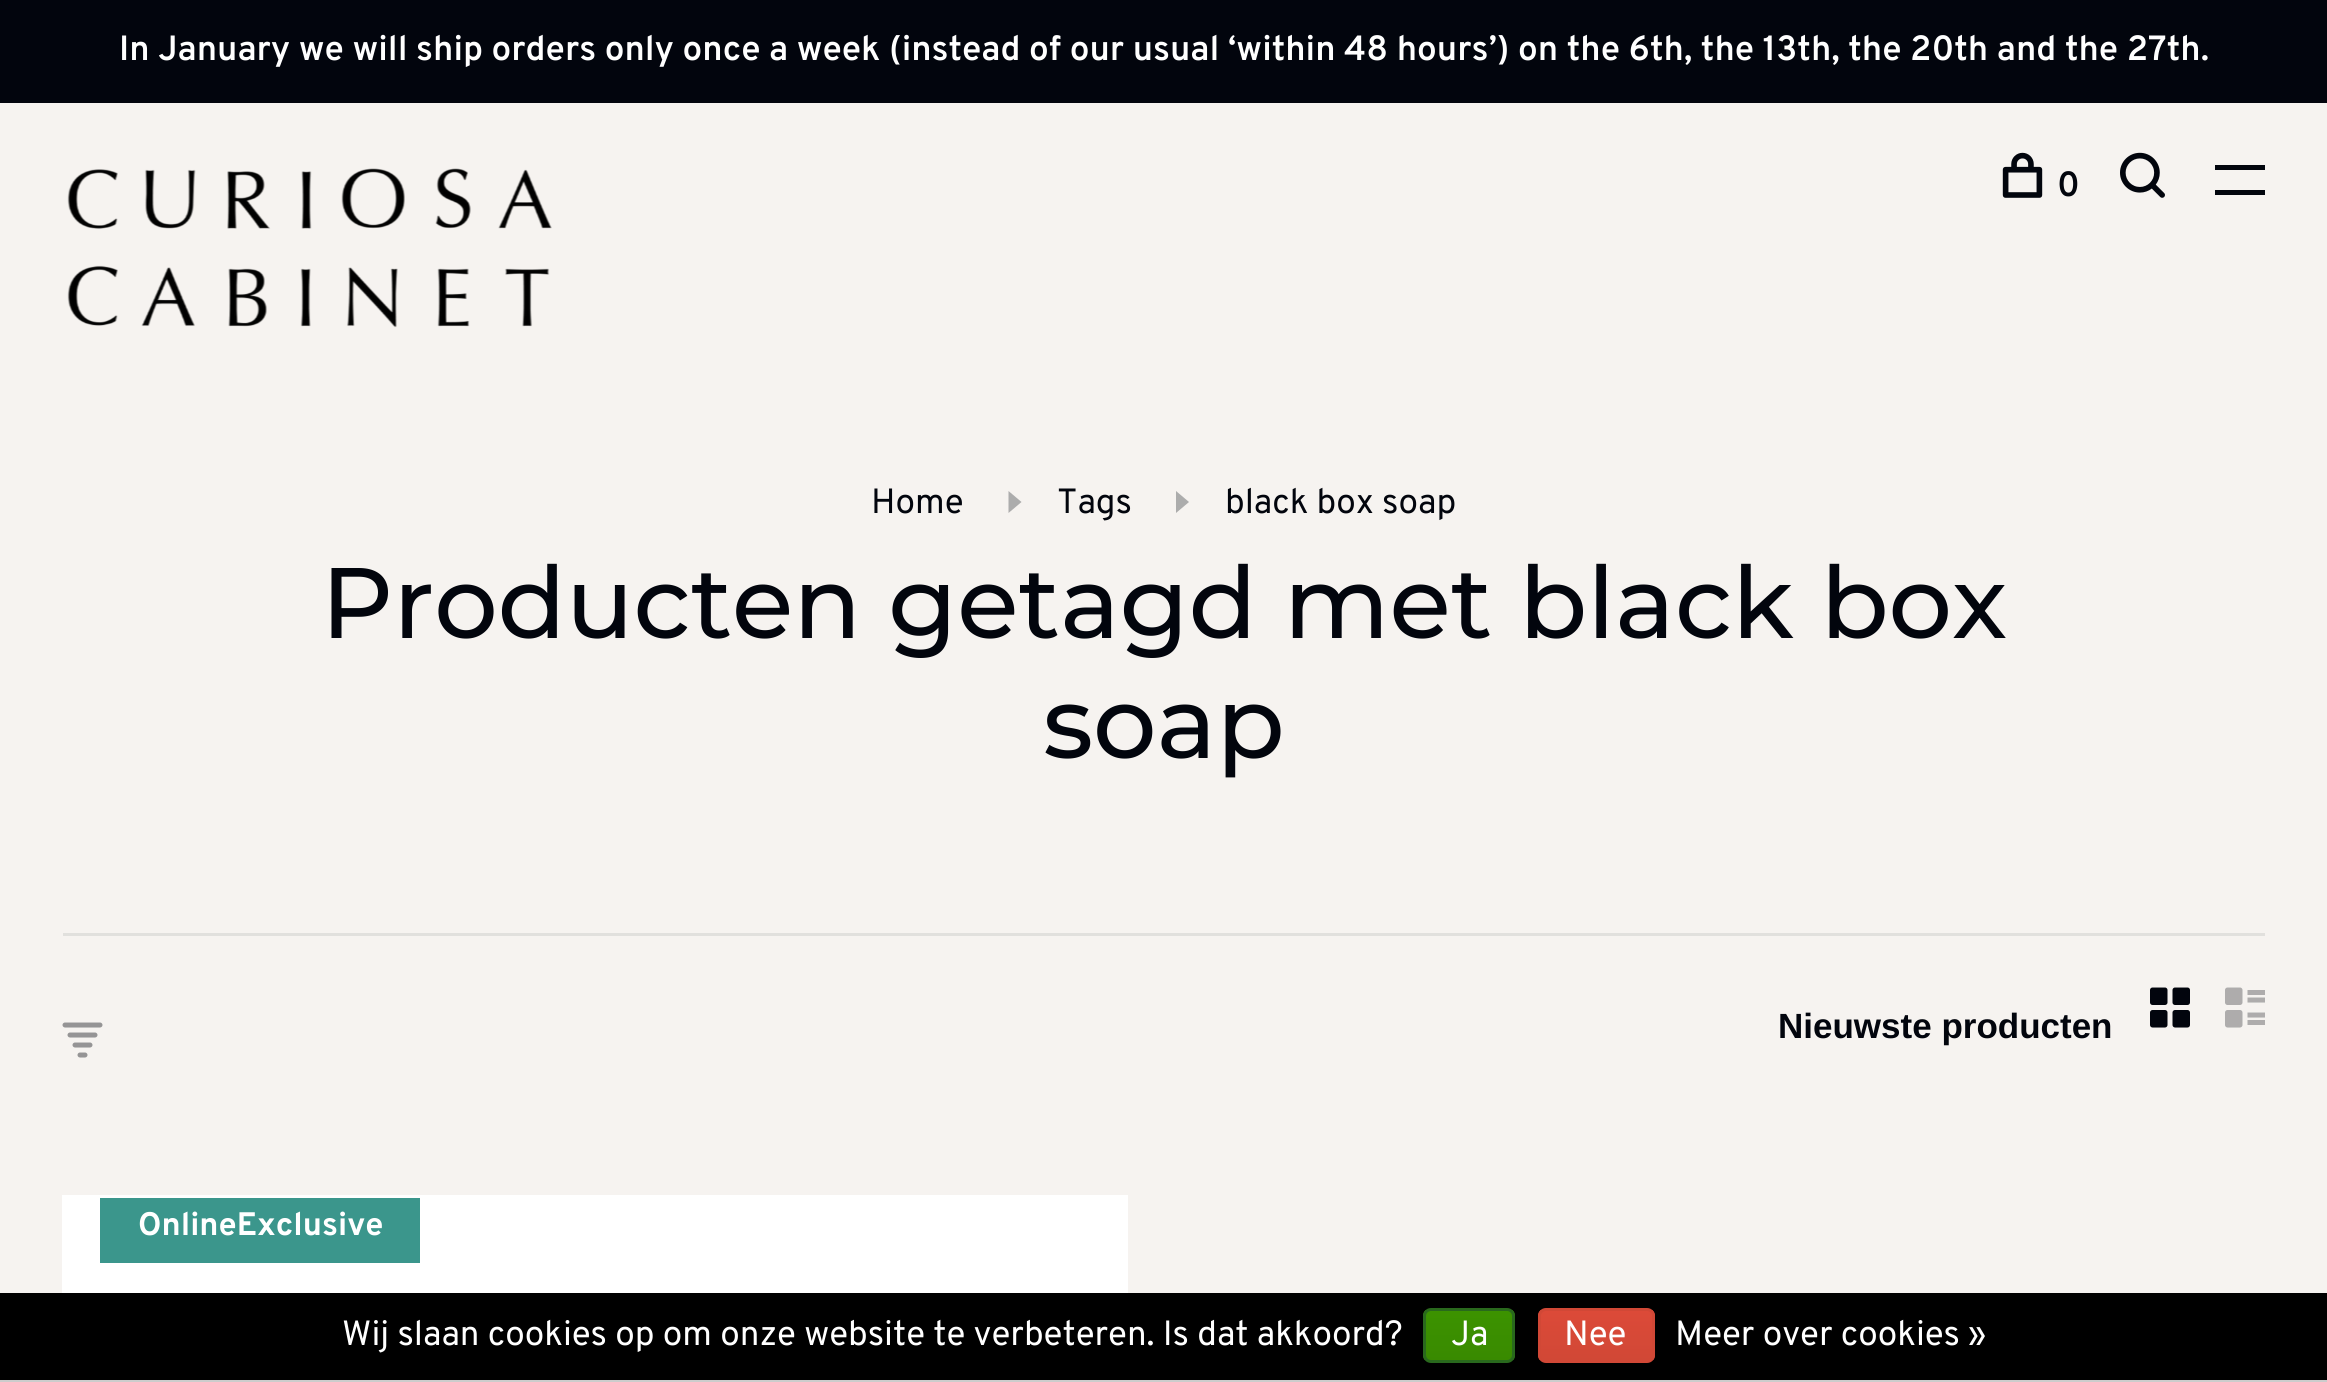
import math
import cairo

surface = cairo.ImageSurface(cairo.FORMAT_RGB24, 2327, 1382)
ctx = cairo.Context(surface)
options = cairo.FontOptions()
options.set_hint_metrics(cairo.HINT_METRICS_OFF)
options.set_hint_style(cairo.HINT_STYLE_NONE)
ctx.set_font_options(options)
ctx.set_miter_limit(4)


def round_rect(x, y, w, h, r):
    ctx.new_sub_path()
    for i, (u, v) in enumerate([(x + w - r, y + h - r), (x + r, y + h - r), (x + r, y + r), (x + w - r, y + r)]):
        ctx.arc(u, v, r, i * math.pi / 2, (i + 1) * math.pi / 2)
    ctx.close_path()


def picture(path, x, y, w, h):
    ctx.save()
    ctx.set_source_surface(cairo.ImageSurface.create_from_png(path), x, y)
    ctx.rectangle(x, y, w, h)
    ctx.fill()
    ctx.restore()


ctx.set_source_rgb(0.961, 0.953, 0.941)
ctx.paint()
ctx.set_source_rgb(0.008, 0.02, 0.051)
ctx.rectangle(0, 0, 2327, 103)
ctx.fill()
ctx.select_font_face("Overpass SemiBold")
ctx.set_font_size(35)
ctx.set_source_rgb(1, 1, 1)
ctx.move_to(119, 60)
ctx.show_text("In January we will ship orders only once a week (instead of our usual ‘within 48 hours’) on the 6th, the 13th, the 20th and the 27th.")
picture("img1.png", 67, 168, 485, 160)
picture("img2.png", 2002, 152, 41, 46)
ctx.set_source_rgb(0.008, 0.02, 0.051)
ctx.move_to(2057, 196)
ctx.show_text("0")
picture("img3.png", 2120, 152, 45, 46)
ctx.rectangle(2215, 165, 50, 5)
ctx.fill()
ctx.rectangle(2215, 190, 50, 5)
ctx.fill()
ctx.select_font_face("Overpass")
ctx.move_to(871, 513)
ctx.show_text("Home")
ctx.set_source_rgb(0.675, 0.675, 0.675)
ctx.new_path()
ctx.move_to(1008.5, 513)
ctx.line_to(1021.5, 502)
ctx.line_to(1008.5, 491)
ctx.close_path()
ctx.fill()
ctx.set_source_rgb(0.008, 0.02, 0.051)
ctx.move_to(1057, 513)
ctx.show_text("Tags")
ctx.set_source_rgb(0.675, 0.675, 0.675)
ctx.new_path()
ctx.move_to(1176, 513)
ctx.line_to(1189, 502)
ctx.line_to(1176, 491)
ctx.close_path()
ctx.fill()
ctx.set_source_rgb(0.008, 0.02, 0.051)
ctx.move_to(1225, 513)
ctx.show_text("black box soap")
ctx.select_font_face("Montserrat Medium")
ctx.set_font_size(100)
ctx.move_to(321, 638)
ctx.show_text("Producten getagd met black box")
ctx.move_to(1043, 758)
ctx.show_text("soap")
ctx.set_source_rgb(0.882, 0.878, 0.867)
ctx.rectangle(63, 933, 2202, 3)
ctx.fill()
picture("img4.png", 62, 1022, 41, 36)
ctx.select_font_face("Liberation Sans", cairo.FONT_SLANT_NORMAL, cairo.FONT_WEIGHT_BOLD)
ctx.set_font_size(35)
ctx.set_source_rgb(0.008, 0.02, 0.051)
ctx.move_to(1778, 1038)
ctx.show_text("Nieuwste producten")
picture("img5.png", 2150, 987, 40, 41)
picture("img6.png", 2225, 987, 40, 41)
ctx.set_source_rgb(1, 1, 1)
ctx.rectangle(62, 1195, 1066, 98)
ctx.fill()
ctx.set_source_rgb(0.231, 0.588, 0.549)
ctx.rectangle(100, 1198, 320, 65)
ctx.fill()
ctx.select_font_face("Overpass", cairo.FONT_SLANT_NORMAL, cairo.FONT_WEIGHT_BOLD)
ctx.set_font_size(32.5)
ctx.set_source_rgb(1, 1, 1)
ctx.move_to(138, 1235)
ctx.show_text("OnlineExclusive")
ctx.set_source_rgb(0, 0, 0)
ctx.rectangle(0, 1293, 2327, 87)
ctx.fill()
ctx.set_source_rgb(0.8, 0.8, 0.8)
ctx.rectangle(0, 1380, 2327, 2)
ctx.fill()
ctx.select_font_face("Overpass")
ctx.set_font_size(35)
ctx.set_source_rgb(1, 1, 1)
ctx.move_to(342, 1345)
ctx.show_text("Wij slaan cookies op om onze website te verbeteren. Is dat akkoord?")
ctx.save()
round_rect(1423, 1308, 92, 55, 8)
ctx.clip()
gradient = cairo.LinearGradient(1469, 1310, 1469, 1360)
gradient.add_color_stop_rgba(0, 0.235, 0.576, 0, 1)
gradient.add_color_stop_rgba(1, 0.224, 0.541, 0, 1)
ctx.set_source(gradient)
ctx.rectangle(1423, 1310, 92, 50)
ctx.fill()
ctx.restore()
round_rect(1424.5, 1309.5, 89, 52, 6.5)
ctx.set_source_rgb(0.161, 0.412, 0.114)
ctx.set_line_width(3)
ctx.stroke()
ctx.set_source_rgb(1, 1, 1)
ctx.move_to(1451, 1345)
ctx.show_text("Ja")
ctx.save()
round_rect(1538, 1308, 117, 55, 8)
ctx.clip()
gradient = cairo.LinearGradient(1596, 1310, 1596, 1360)
gradient.add_color_stop_rgba(0, 0.863, 0.29, 0.22, 1)
gradient.add_color_stop_rgba(1, 0.82, 0.282, 0.212, 1)
ctx.set_source(gradient)
ctx.rectangle(1538, 1310, 117, 50)
ctx.fill()
ctx.restore()
round_rect(1539.5, 1309.5, 114, 52, 6.5)
ctx.set_source_rgb(0.82, 0.282, 0.212)
ctx.stroke()
ctx.set_source_rgb(1, 1, 1)
ctx.move_to(1564, 1345)
ctx.show_text("Nee")
ctx.move_to(1675, 1345)
ctx.show_text("Meer over cookies »")
surface.write_to_png("page.png")
